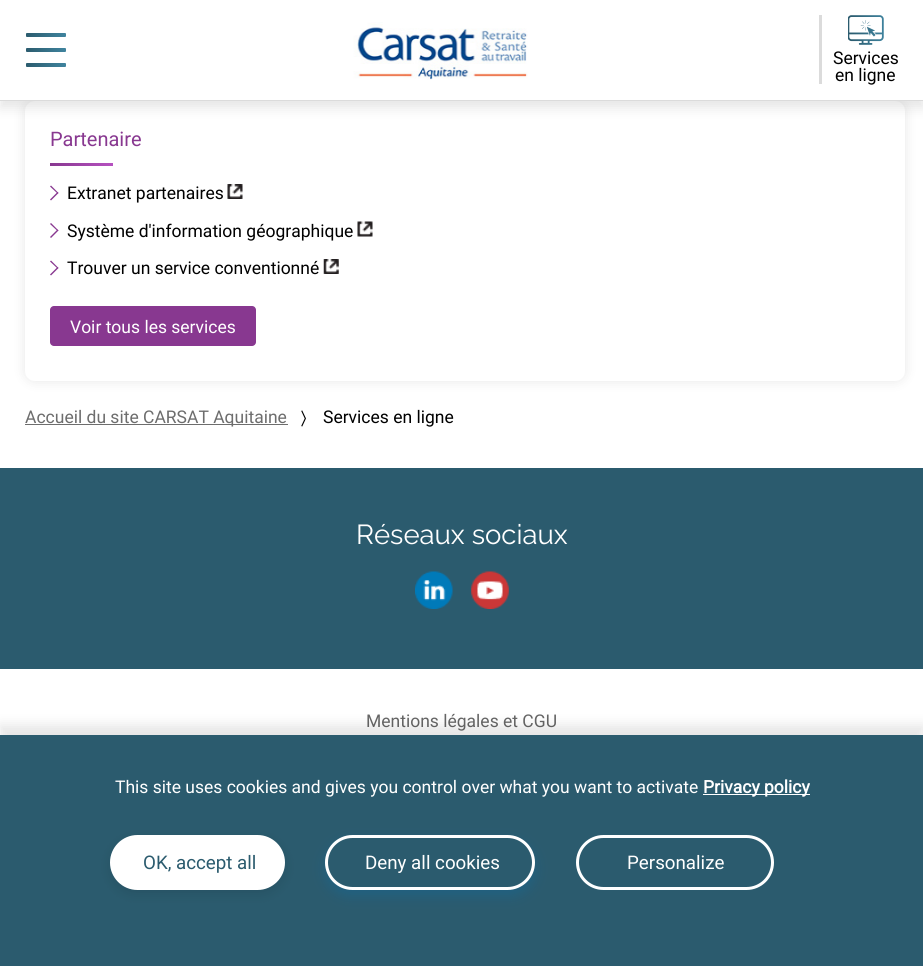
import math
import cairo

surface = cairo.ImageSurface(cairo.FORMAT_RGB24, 923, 966)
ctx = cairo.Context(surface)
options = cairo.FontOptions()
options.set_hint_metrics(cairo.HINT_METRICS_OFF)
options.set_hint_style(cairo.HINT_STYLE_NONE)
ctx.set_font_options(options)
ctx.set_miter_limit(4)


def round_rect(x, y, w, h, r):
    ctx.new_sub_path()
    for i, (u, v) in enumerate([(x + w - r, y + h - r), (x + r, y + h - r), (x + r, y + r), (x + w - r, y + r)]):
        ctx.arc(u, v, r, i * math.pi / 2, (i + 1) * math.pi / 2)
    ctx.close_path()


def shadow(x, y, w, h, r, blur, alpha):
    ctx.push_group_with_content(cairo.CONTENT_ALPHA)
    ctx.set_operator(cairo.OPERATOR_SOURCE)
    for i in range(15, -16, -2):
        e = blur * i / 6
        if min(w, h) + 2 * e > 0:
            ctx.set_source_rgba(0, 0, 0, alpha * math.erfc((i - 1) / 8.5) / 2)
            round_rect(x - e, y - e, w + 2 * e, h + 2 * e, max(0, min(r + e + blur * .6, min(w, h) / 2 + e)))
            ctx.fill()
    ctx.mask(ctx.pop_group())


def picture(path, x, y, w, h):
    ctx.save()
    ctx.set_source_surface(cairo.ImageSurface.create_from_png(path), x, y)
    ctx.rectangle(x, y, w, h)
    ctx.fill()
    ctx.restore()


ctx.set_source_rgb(1, 1, 1)
ctx.paint()
ctx.set_source_rgb(0, 0, 0)
shadow(25, 101, 880, 280, 10, 6, 0.1)
ctx.set_source_rgb(1, 1, 1)
round_rect(25, 101, 880, 280, 10)
ctx.fill()
ctx.set_source_rgb(0, 0, 0)
shadow(0, 6, 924, 102, 0, 6, 0.1)
ctx.set_source_rgb(1, 1, 1)
ctx.rectangle(0, 0, 923, 100)
ctx.fill()
ctx.set_source_rgb(0.859, 0.859, 0.859)
ctx.rectangle(0, 100, 923, 1)
ctx.fill()
gradient = cairo.LinearGradient(26, 34, 66, 34)
gradient.add_color_stop_rgba(0, 0.169, 0.357, 0.431, 1)
gradient.add_color_stop_rgba(1, 0.247, 0.514, 0.62, 1)
ctx.set_source(gradient)
round_rect(26, 33, 40, 4, 1)
ctx.fill()
gradient = cairo.LinearGradient(26, 49, 66, 49)
gradient.add_color_stop_rgba(0, 0.169, 0.357, 0.431, 1)
gradient.add_color_stop_rgba(1, 0.247, 0.514, 0.62, 1)
ctx.set_source(gradient)
round_rect(26, 48, 40, 4, 1)
ctx.fill()
gradient = cairo.LinearGradient(26, 64, 66, 64)
gradient.add_color_stop_rgba(0, 0.169, 0.357, 0.431, 1)
gradient.add_color_stop_rgba(1, 0.247, 0.514, 0.62, 1)
ctx.set_source(gradient)
round_rect(26, 63, 40, 4, 1)
ctx.fill()
picture("img1.png", 353, 22, 175, 58)
ctx.set_source_rgb(0.859, 0.859, 0.859)
ctx.rectangle(819, 15, 3, 69)
ctx.fill()
picture("img2.png", 848, 15, 36, 30)
ctx.select_font_face("Roboto")
ctx.set_font_size(17.5)
ctx.set_source_rgb(0, 0, 0)
ctx.move_to(833, 64)
ctx.show_text("Services")
ctx.move_to(835, 81)
ctx.show_text("en ligne")
gradient = cairo.LinearGradient(50, 164, 113, 164)
gradient.add_color_stop_rgba(0, 0.533, 0.22, 0.565, 1)
gradient.add_color_stop_rgba(1, 0.714, 0.318, 0.753, 1)
ctx.set_source(gradient)
ctx.rectangle(50, 163, 63, 3)
ctx.fill()
ctx.set_font_size(20)
ctx.set_source_rgb(0.533, 0.22, 0.565)
ctx.move_to(50, 146)
ctx.show_text("Partenaire")
ctx.new_path()
ctx.move_to(51, 185.5)
ctx.line_to(58.5, 193)
ctx.line_to(57.5, 193.5)
ctx.line_to(50, 186.5)
ctx.close_path()
ctx.fill()
ctx.new_path()
ctx.move_to(57.5, 192)
ctx.line_to(58.5, 193)
ctx.line_to(51, 200.5)
ctx.line_to(50, 199.5)
ctx.close_path()
ctx.move_to(51, 223)
ctx.line_to(58.5, 230.5)
ctx.line_to(57.5, 231)
ctx.line_to(50, 224)
ctx.close_path()
ctx.fill()
ctx.set_font_size(17.5)
ctx.set_source_rgb(0, 0, 0)
ctx.move_to(67, 199)
ctx.show_text("Extranet partenaires")
picture("img3.png", 227, 184, 16, 15)
ctx.set_source_rgb(0.533, 0.22, 0.565)
ctx.new_path()
ctx.move_to(57.5, 229.5)
ctx.line_to(58.5, 230.5)
ctx.line_to(51, 238)
ctx.line_to(50, 237)
ctx.close_path()
ctx.move_to(51, 260.5)
ctx.line_to(58.5, 268)
ctx.line_to(57.5, 268.5)
ctx.line_to(50, 261.5)
ctx.close_path()
ctx.fill()
ctx.set_source_rgb(0, 0, 0)
ctx.move_to(67, 237)
ctx.show_text("Système d'information géographique")
picture("img4.png", 357, 221, 16, 16)
ctx.set_source_rgb(0.533, 0.22, 0.565)
ctx.new_path()
ctx.move_to(57.5, 267)
ctx.line_to(58.5, 268)
ctx.line_to(51, 275.5)
ctx.line_to(50, 274.5)
ctx.close_path()
ctx.fill()
ctx.set_source_rgb(0, 0, 0)
ctx.move_to(67, 274)
ctx.show_text("Trouver un service conventionné")
picture("img5.png", 323, 259, 16, 15)
ctx.set_source_rgb(0.533, 0.22, 0.565)
round_rect(50, 306, 206, 40, 4)
ctx.fill()
ctx.set_source_rgb(1, 1, 1)
ctx.move_to(70, 333)
ctx.show_text("Voir tous les services")
ctx.set_source_rgb(0.427, 0.427, 0.427)
ctx.rectangle(25, 424, 263, 1)
ctx.fill()
ctx.move_to(25, 423)
ctx.show_text("Accueil du site CARSAT Aquitaine")
ctx.select_font_face("WenQuanYi Zen Hei", cairo.FONT_SLANT_NORMAL, cairo.FONT_WEIGHT_BOLD)
ctx.set_source_rgb(0, 0, 0)
ctx.move_to(299, 425)
ctx.show_text("〉")
ctx.select_font_face("Roboto")
ctx.move_to(323, 423)
ctx.show_text("Services en ligne")
ctx.set_source_rgb(0.169, 0.357, 0.431)
ctx.rectangle(0, 468, 923, 201)
ctx.fill()
ctx.select_font_face("Raleway")
ctx.set_font_size(27.5)
ctx.set_source_rgb(1, 1, 1)
ctx.move_to(356, 544)
ctx.show_text("Réseaux sociaux")
picture("img6.png", 415, 571, 38, 38)
picture("img7.png", 471, 571, 38, 38)
ctx.select_font_face("Roboto")
ctx.set_font_size(17.5)
ctx.set_source_rgb(0.4, 0.4, 0.4)
ctx.move_to(366, 727)
ctx.show_text("Mentions légales et CGU")
ctx.set_source_rgb(0, 0, 0)
shadow(0, 725, 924, 231, 0, 6, 0.1)
ctx.set_source_rgb(0.169, 0.357, 0.431)
ctx.rectangle(0, 735, 923, 231)
ctx.fill()
ctx.set_source_rgb(1, 1, 1)
ctx.move_to(115, 793)
ctx.show_text("This site uses cookies and gives you control over what you want to activate")
ctx.rectangle(703, 794, 107, 1)
ctx.fill()
ctx.select_font_face("Roboto", cairo.FONT_SLANT_NORMAL, cairo.FONT_WEIGHT_BOLD)
ctx.move_to(703, 793)
ctx.show_text("Privacy policy")
ctx.set_source_rgb(0, 0, 0)
shadow(110, 839, 175, 55, 27.5, 6, 0.1)
ctx.set_source_rgb(1, 1, 1)
round_rect(110, 835, 175, 55, 27.5)
ctx.fill()
ctx.select_font_face("Roboto")
ctx.set_font_size(18.75)
ctx.set_source_rgb(0.169, 0.357, 0.431)
ctx.move_to(143, 869)
ctx.show_text("OK, accept all")
ctx.set_source_rgb(0, 0.443, 0.725)
shadow(325, 841, 210, 55, 27.5, 6, 0.25)
ctx.set_source_rgb(0.169, 0.357, 0.431)
round_rect(326.5, 836.5, 207, 52, 26)
ctx.fill_preserve()
ctx.set_source_rgb(1, 1, 1)
ctx.set_line_width(3)
ctx.stroke()
ctx.move_to(365, 869)
ctx.show_text("Deny all cookies")
round_rect(577.5, 836.5, 195, 52, 26)
ctx.stroke()
ctx.move_to(627, 869)
ctx.show_text("Personalize")
surface.write_to_png("page.png")
